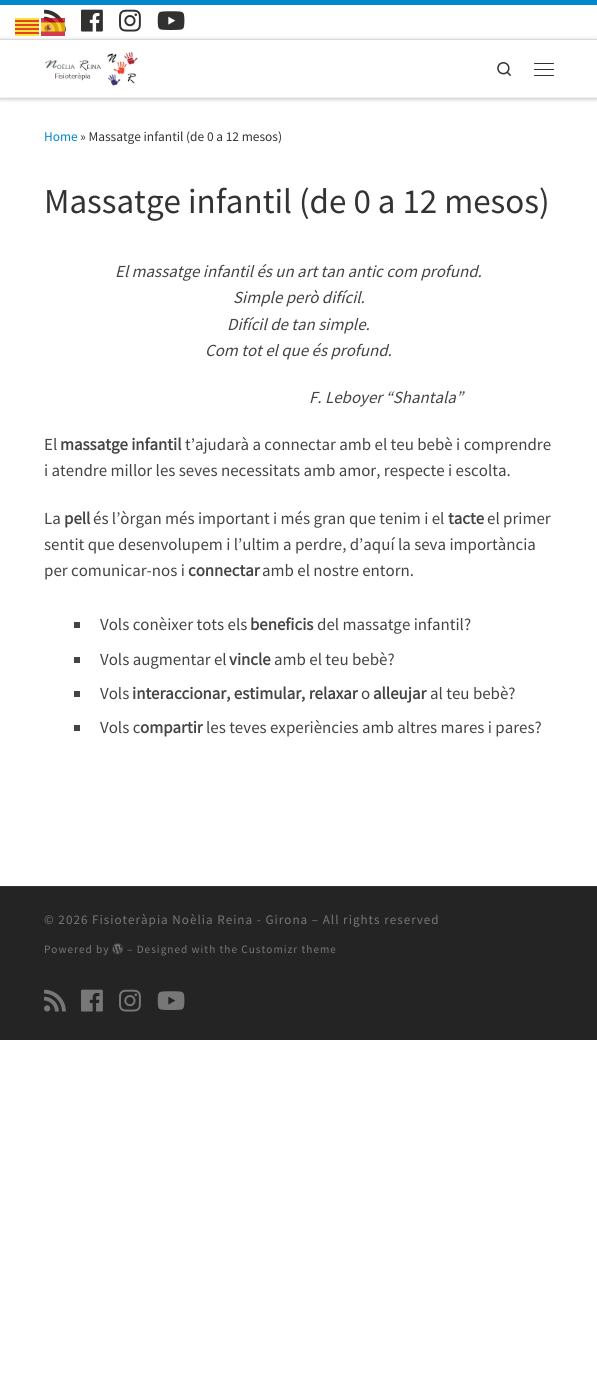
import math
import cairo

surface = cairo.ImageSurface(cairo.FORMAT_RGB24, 597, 1382)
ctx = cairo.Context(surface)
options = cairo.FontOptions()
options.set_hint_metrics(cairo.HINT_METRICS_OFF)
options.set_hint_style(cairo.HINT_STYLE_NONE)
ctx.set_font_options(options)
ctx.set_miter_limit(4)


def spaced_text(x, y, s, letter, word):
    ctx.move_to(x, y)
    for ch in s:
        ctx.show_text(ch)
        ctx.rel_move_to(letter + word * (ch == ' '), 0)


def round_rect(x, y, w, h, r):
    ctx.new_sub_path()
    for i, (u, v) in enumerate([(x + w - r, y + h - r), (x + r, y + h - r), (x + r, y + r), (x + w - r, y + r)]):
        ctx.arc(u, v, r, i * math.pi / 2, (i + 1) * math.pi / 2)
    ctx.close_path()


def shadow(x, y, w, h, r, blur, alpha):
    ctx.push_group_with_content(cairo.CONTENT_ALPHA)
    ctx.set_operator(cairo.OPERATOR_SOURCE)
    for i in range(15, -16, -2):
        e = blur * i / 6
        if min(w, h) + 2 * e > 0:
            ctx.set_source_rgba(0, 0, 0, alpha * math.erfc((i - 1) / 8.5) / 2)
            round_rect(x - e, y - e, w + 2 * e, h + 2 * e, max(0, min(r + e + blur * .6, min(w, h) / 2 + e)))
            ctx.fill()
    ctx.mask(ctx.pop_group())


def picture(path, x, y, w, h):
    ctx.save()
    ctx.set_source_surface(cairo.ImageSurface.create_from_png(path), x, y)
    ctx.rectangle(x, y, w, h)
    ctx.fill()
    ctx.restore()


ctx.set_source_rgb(1, 1, 1)
ctx.paint()
ctx.save()
ctx.rectangle(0, 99, 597, 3)
ctx.clip()
ctx.set_source_rgb(0.4, 0.4, 0.4)
shadow(0, 2, 597, 99, 0, 1, 0.08)
ctx.restore()
ctx.set_source_rgb(0.925, 0.925, 0.925)
ctx.rectangle(0, 39, 597, 1)
ctx.fill()
ctx.set_source_rgb(0.937, 0.937, 0.937)
ctx.rectangle(0, 98, 597, 1)
ctx.fill()
ctx.save()
ctx.set_fill_rule(cairo.FILL_RULE_EVEN_ODD)
ctx.new_path()
ctx.move_to(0, 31)
ctx.line_to(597, 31)
ctx.line_to(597, 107)
ctx.line_to(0, 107)
ctx.close_path()
ctx.move_to(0, 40)
ctx.line_to(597, 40)
ctx.line_to(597, 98)
ctx.line_to(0, 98)
ctx.close_path()
ctx.clip()
ctx.set_source_rgb(0, 0, 0)
shadow(0, 40, 597, 58, 0, 2.5, 0.2)
ctx.restore()
picture("img1.png", 15, 18, 24, 18)
picture("img3.png", 44, 9, 22, 23)
picture("img2.png", 41, 18, 24, 18)
ctx.set_source_rgb(0, 0.533, 0.8)
ctx.rectangle(0, 0, 597, 5)
ctx.fill()
picture("img4.png", 81, 9, 22, 23)
picture("img5.png", 119, 9, 22, 23)
picture("img6.png", 157, 11, 28, 19)
picture("img7.png", 45, 52, 93, 34)
picture("img8.png", 497, 62, 15, 14)
ctx.set_source_rgb(0.192, 0.192, 0.192)
round_rect(534, 63, 20, 1, 0.5)
ctx.fill()
round_rect(534, 69, 20, 1, 0.5)
ctx.fill()
round_rect(534, 75, 20, 1, 0.5)
ctx.fill()
ctx.set_source_rgb(0.941, 0.941, 0.941)
ctx.rectangle(0, 97, 597, 1)
ctx.fill()
ctx.select_font_face("Source Sans Pro")
ctx.set_font_size(13.4)
ctx.set_source_rgb(0, 0.533, 0.8)
ctx.move_to(44, 141)
ctx.show_text("Home")
ctx.set_source_rgb(0.2, 0.2, 0.2)
ctx.move_to(80, 141)
ctx.show_text("» Massatge infantil (de 0 a 12 mesos)")
ctx.set_font_size(35)
ctx.move_to(44, 213)
ctx.show_text("Massatge infantil (de 0 a 12 mesos)")
ctx.select_font_face("Source Sans Pro", cairo.FONT_SLANT_ITALIC)
ctx.set_font_size(16.9)
ctx.set_source_rgb(0.267, 0.267, 0.267)
ctx.move_to(115, 277)
ctx.show_text("El massatge infantil és un art tan antic com profund.")
ctx.move_to(233, 303)
ctx.show_text("Simple però difícil.")
ctx.move_to(227, 330)
ctx.show_text("Difícil de tan simple.")
ctx.move_to(205, 356)
ctx.show_text("Com tot el que és profund.")
ctx.move_to(309, 403)
ctx.show_text("F. Leboyer “Shantala”")
ctx.select_font_face("Source Sans Pro")
ctx.move_to(44, 450)
ctx.show_text("El")
ctx.select_font_face("Source Sans Pro", cairo.FONT_SLANT_NORMAL, cairo.FONT_WEIGHT_BOLD)
ctx.move_to(60, 450)
ctx.show_text("massatge infantil")
ctx.select_font_face("Source Sans Pro")
ctx.move_to(185, 450)
ctx.show_text("t’ajudarà a connectar amb el teu bebè i comprendre")
ctx.move_to(44, 476)
ctx.show_text("i atendre millor les seves necessitats amb amor, respecte i escolta.")
ctx.move_to(44, 524)
ctx.show_text("La")
ctx.select_font_face("Source Sans Pro", cairo.FONT_SLANT_NORMAL, cairo.FONT_WEIGHT_BOLD)
ctx.move_to(64, 524)
ctx.show_text("pell")
ctx.select_font_face("Source Sans Pro")
ctx.move_to(93, 524)
ctx.show_text("és l’òrgan més important i més gran que tenim i el")
ctx.select_font_face("Source Sans Pro", cairo.FONT_SLANT_NORMAL, cairo.FONT_WEIGHT_BOLD)
ctx.move_to(448, 524)
ctx.show_text("tacte")
ctx.select_font_face("Source Sans Pro")
ctx.move_to(487, 524)
ctx.show_text("el primer")
ctx.move_to(44, 550)
ctx.show_text("sentit que desenvolupem i l’ultim a perdre, d’aquí la seva importància")
ctx.move_to(44, 576)
ctx.show_text("per comunicar-nos i")
ctx.select_font_face("Source Sans Pro", cairo.FONT_SLANT_NORMAL, cairo.FONT_WEIGHT_BOLD)
ctx.move_to(188, 576)
ctx.show_text("connectar")
ctx.select_font_face("Source Sans Pro")
ctx.move_to(262, 576)
ctx.show_text("amb el nostre entorn.")
ctx.rectangle(74, 622, 6, 6)
ctx.fill()
ctx.move_to(100, 630)
ctx.show_text("Vols conèixer tots els")
ctx.select_font_face("Source Sans Pro", cairo.FONT_SLANT_NORMAL, cairo.FONT_WEIGHT_BOLD)
ctx.move_to(250, 630)
ctx.show_text("beneficis")
ctx.select_font_face("Source Sans Pro")
ctx.move_to(317, 630)
ctx.show_text("del massatge infantil?")
ctx.rectangle(74, 657, 6, 6)
ctx.fill()
ctx.move_to(100, 665)
ctx.show_text("Vols augmentar el")
ctx.select_font_face("Source Sans Pro", cairo.FONT_SLANT_NORMAL, cairo.FONT_WEIGHT_BOLD)
ctx.move_to(229, 665)
ctx.show_text("vincle")
ctx.select_font_face("Source Sans Pro")
ctx.move_to(274, 665)
ctx.show_text("amb el teu bebè?")
ctx.rectangle(74, 691, 6, 6)
ctx.fill()
ctx.move_to(100, 699)
ctx.show_text("Vols")
ctx.select_font_face("Source Sans Pro", cairo.FONT_SLANT_NORMAL, cairo.FONT_WEIGHT_BOLD)
ctx.move_to(132, 699)
ctx.show_text("interaccionar, estimular, relaxar")
ctx.select_font_face("Source Sans Pro")
ctx.move_to(361, 699)
ctx.show_text("o")
ctx.select_font_face("Source Sans Pro", cairo.FONT_SLANT_NORMAL, cairo.FONT_WEIGHT_BOLD)
ctx.move_to(373, 699)
ctx.show_text("alleujar")
ctx.select_font_face("Source Sans Pro")
ctx.move_to(430, 699)
ctx.show_text("al teu bebè?")
ctx.rectangle(74, 725, 6, 6)
ctx.fill()
ctx.move_to(100, 733)
ctx.show_text("Vols c")
ctx.select_font_face("Source Sans Pro", cairo.FONT_SLANT_NORMAL, cairo.FONT_WEIGHT_BOLD)
ctx.move_to(140, 733)
ctx.show_text("ompartir")
ctx.select_font_face("Source Sans Pro")
ctx.move_to(206, 733)
ctx.show_text("les teves experiències amb altres mares i pares?")
ctx.set_source_rgb(0.192, 0.192, 0.192)
ctx.rectangle(0, 886, 597, 1)
ctx.fill()
ctx.set_source_rgb(0.141, 0.141, 0.141)
ctx.rectangle(0, 887, 597, 153)
ctx.fill()
ctx.set_font_size(13.1)
ctx.set_source_rgb(0.467, 0.467, 0.467)
spaced_text(44, 924, "© 2026 Fisioteràpia Noèlia Reina - Girona – All rights reserved", 1, 0)
ctx.set_font_size(11.25)
spaced_text(44, 953, "Powered by", 1, 0)
picture("img9.png", 112, 943, 11, 12)
spaced_text(127, 953, "– Designed with the Customizr theme", 1, 0)
picture("img10.png", 44, 989, 22, 23)
picture("img11.png", 81, 989, 22, 23)
picture("img12.png", 119, 989, 22, 23)
picture("img13.png", 157, 991, 28, 19)
surface.write_to_png("page.png")
